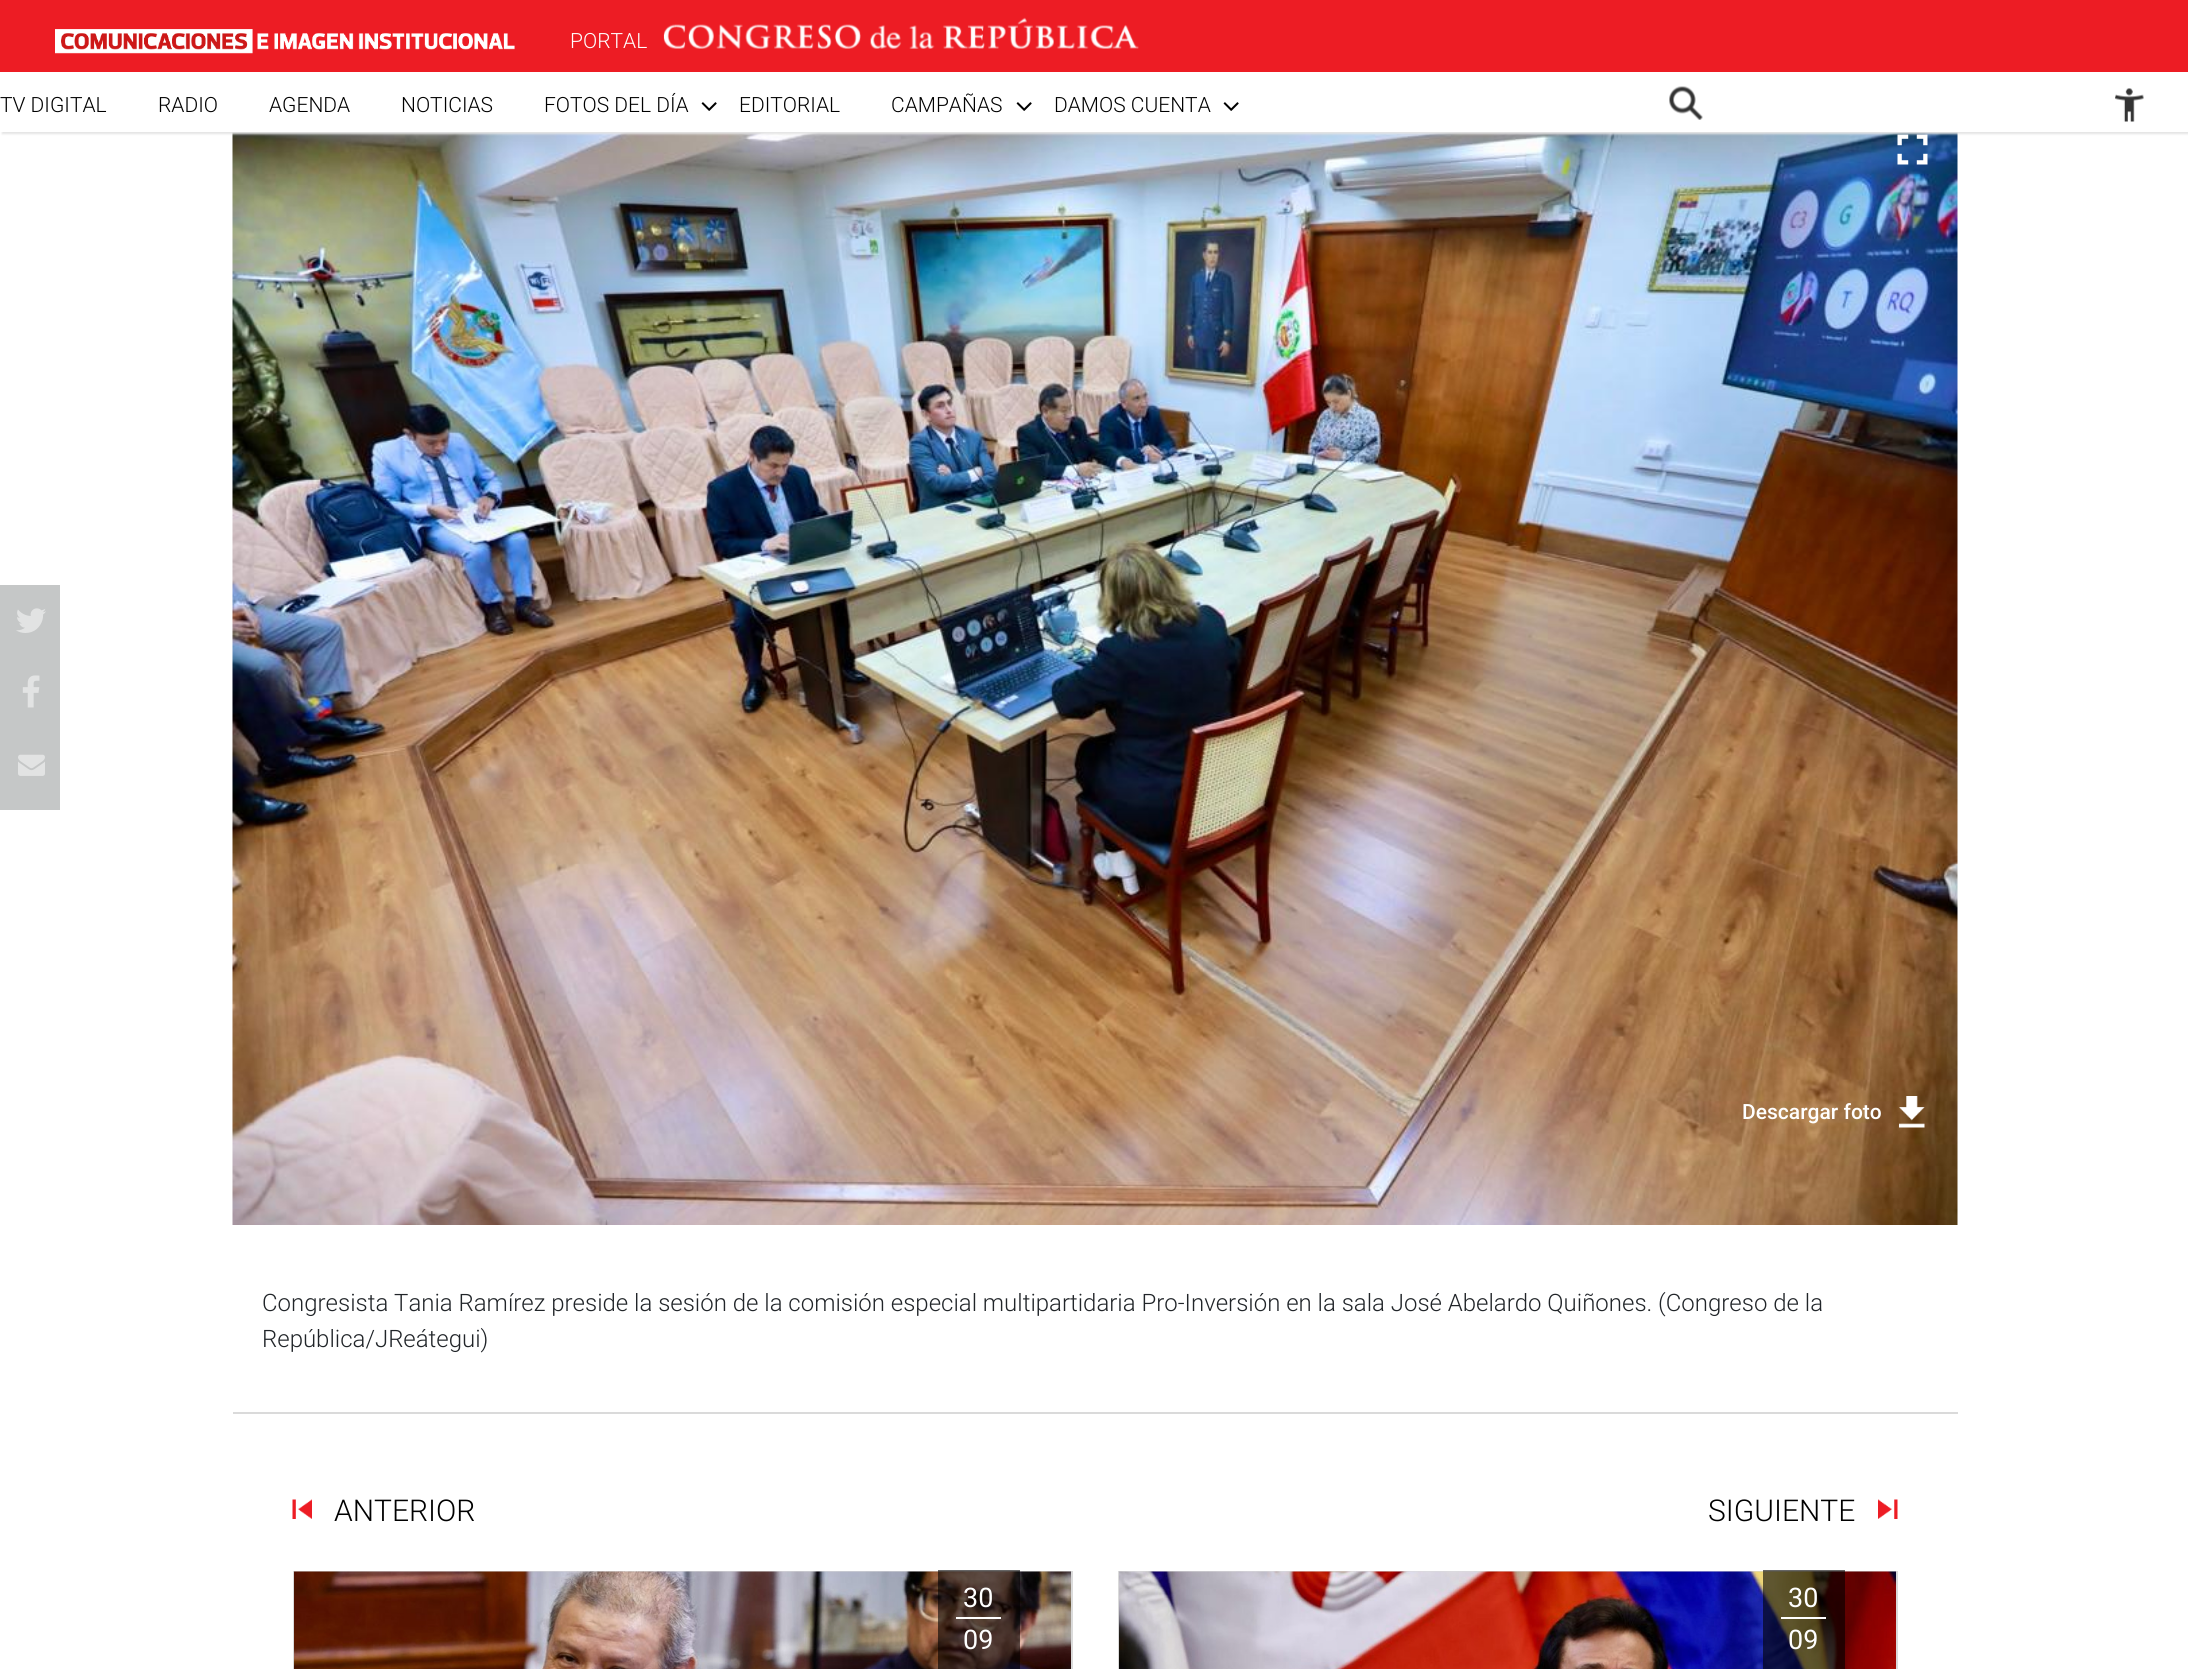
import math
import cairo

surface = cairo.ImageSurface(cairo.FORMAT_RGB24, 2188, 1669)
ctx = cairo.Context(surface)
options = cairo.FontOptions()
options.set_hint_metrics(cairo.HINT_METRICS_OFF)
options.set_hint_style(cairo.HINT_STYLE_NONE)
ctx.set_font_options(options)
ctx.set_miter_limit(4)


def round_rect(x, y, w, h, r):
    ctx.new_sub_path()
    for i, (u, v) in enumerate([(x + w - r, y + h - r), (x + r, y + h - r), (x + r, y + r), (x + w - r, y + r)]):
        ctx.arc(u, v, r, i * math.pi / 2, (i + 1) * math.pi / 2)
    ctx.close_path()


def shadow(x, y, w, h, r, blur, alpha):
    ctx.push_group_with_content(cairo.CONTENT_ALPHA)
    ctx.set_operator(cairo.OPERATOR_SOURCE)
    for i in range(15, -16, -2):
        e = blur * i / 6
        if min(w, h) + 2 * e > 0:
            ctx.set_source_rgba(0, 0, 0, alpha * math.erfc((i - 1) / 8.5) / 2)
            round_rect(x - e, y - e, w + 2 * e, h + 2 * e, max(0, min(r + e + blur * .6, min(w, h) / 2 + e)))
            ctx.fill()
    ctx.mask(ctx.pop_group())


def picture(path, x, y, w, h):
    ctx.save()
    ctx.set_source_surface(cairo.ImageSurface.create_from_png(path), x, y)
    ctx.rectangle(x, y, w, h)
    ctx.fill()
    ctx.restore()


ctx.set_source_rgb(1, 1, 1)
ctx.paint()
ctx.set_source_rgb(0.929, 0.11, 0.141)
ctx.rectangle(0, 0, 2188, 72)
ctx.fill()
picture("img1.png", 55, 29, 460, 25)
ctx.select_font_face("Roboto Light")
ctx.set_font_size(21)
ctx.set_source_rgb(1, 1, 1)
ctx.move_to(570, 48)
ctx.show_text("PORTAL")
picture("img2.png", 663, 17, 476, 32)
picture("img9.png", 232, 132, 1726, 1093)
picture("img10.png", 1897, 134, 31, 31)
ctx.save()
ctx.rectangle(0, 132, 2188, 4)
ctx.clip()
ctx.set_source_rgb(0.894, 0.894, 0.894)
shadow(2, 74, 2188, 60, 0, 1, 1)
ctx.restore()
ctx.set_source_rgb(0, 0, 0)
ctx.move_to(0, 112)
ctx.show_text("TV DIGITAL")
ctx.move_to(158, 112)
ctx.show_text("RADIO")
ctx.move_to(269, 112)
ctx.show_text("AGENDA")
ctx.move_to(401, 112)
ctx.show_text("NOTICIAS")
ctx.move_to(544, 112)
ctx.show_text("FOTOS DEL DÍA")
picture("img3.png", 701, 102, 16, 9)
ctx.move_to(739, 112)
ctx.show_text("EDITORIAL")
ctx.move_to(891, 112)
ctx.show_text("CAMPAÑAS")
picture("img3.png", 1016, 102, 16, 9)
ctx.move_to(1054, 112)
ctx.show_text("DAMOS CUENTA")
picture("img3.png", 1223, 102, 16, 9)
picture("img4.png", 1669, 86, 34, 34)
picture("img5.png", 2115, 88, 29, 34)
ctx.set_source_rgb(0.773, 0.78, 0.78)
ctx.rectangle(0, 585, 60, 225)
ctx.fill()
picture("img6.png", 16, 608, 30, 25)
picture("img7.png", 22, 675, 18, 33)
picture("img8.png", 18, 754, 27, 22)
ctx.select_font_face("Roboto Medium")
ctx.set_source_rgb(1, 1, 1)
ctx.move_to(1742, 1119)
ctx.show_text("Descargar foto")
picture("img11.png", 1899, 1096, 26, 32)
ctx.set_source_rgb(0.855, 0.855, 0.855)
ctx.rectangle(233, 1412, 1725, 2)
ctx.fill()
ctx.select_font_face("Roboto Light")
ctx.set_font_size(24)
ctx.set_source_rgb(0.129, 0.145, 0.161)
ctx.move_to(262, 1311)
ctx.show_text("Congresista Tania Ramírez preside la sesión de la comisión especial multipartidaria Pro-Inversión en la sala José Abelardo Quiñones. (Congreso de la")
ctx.move_to(262, 1347)
ctx.show_text("República/JReátegui)")
picture("img12.png", 292, 1499, 20, 20)
ctx.set_font_size(30)
ctx.set_source_rgb(0, 0, 0)
ctx.move_to(334, 1521)
ctx.show_text("ANTERIOR")
ctx.move_to(1708, 1521)
ctx.show_text("SIGUIENTE")
picture("img13.png", 1878, 1499, 20, 20)
ctx.rectangle(294, 1572, 778, 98)
ctx.set_source_rgb(0.855, 0.855, 0.855)
ctx.stroke()
picture("img14.png", 294, 1571, 777, 98)
ctx.set_source_rgba(0, 0, 0, 0.6)
ctx.rectangle(938, 1570, 82, 99)
ctx.fill()
ctx.set_source_rgb(1, 1, 1)
ctx.rectangle(956, 1617, 45, 2)
ctx.fill()
ctx.select_font_face("Roboto")
ctx.set_font_size(27)
ctx.move_to(963, 1607)
ctx.show_text("30")
ctx.move_to(963, 1649)
ctx.show_text("09")
ctx.rectangle(1119, 1572, 778, 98)
ctx.set_source_rgb(0.855, 0.855, 0.855)
ctx.stroke()
picture("img15.png", 1119, 1571, 777, 98)
ctx.set_source_rgba(0, 0, 0, 0.6)
ctx.rectangle(1763, 1570, 82, 99)
ctx.fill()
ctx.set_source_rgb(1, 1, 1)
ctx.rectangle(1781, 1617, 45, 2)
ctx.fill()
ctx.move_to(1788, 1607)
ctx.show_text("30")
ctx.move_to(1788, 1649)
ctx.show_text("09")
surface.write_to_png("page.png")
